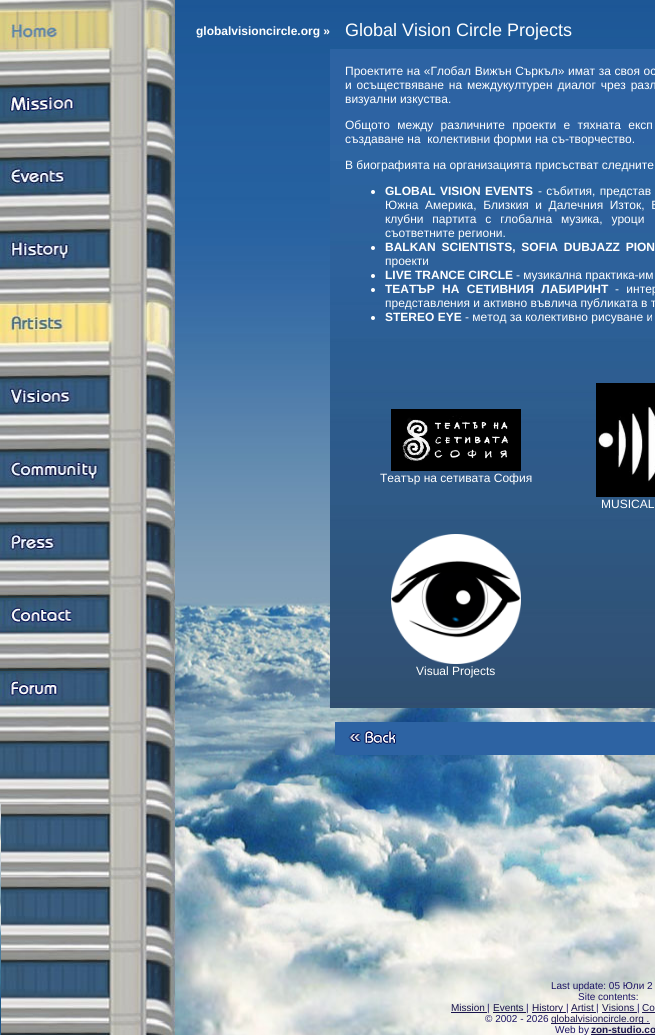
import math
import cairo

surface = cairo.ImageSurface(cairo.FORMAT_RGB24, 655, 1035)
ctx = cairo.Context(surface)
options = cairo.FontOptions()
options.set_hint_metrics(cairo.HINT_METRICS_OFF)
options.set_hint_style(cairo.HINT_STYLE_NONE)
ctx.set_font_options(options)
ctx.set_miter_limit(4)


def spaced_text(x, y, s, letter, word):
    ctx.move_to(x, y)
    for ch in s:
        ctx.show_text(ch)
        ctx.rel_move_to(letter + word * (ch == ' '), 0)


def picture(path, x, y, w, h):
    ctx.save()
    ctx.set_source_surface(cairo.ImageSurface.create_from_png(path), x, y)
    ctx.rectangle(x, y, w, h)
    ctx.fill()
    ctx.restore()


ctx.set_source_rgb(1, 1, 1)
ctx.paint()
picture("img1.png", 0, 0, 655, 1035)
picture("img2.png", 1, 730, 174, 305)
picture("img3.png", 0, 0, 175, 73)
picture("img4.png", 0, 73, 175, 73)
picture("img5.png", 0, 146, 175, 73)
picture("img6.png", 0, 219, 175, 73)
picture("img7.png", 0, 292, 175, 73)
picture("img8.png", 0, 365, 175, 73)
picture("img9.png", 0, 438, 175, 73)
picture("img10.png", 0, 511, 175, 73)
picture("img11.png", 0, 584, 175, 73)
picture("img12.png", 0, 657, 175, 73)
picture("img13.png", 0, 730, 147, 73)
ctx.select_font_face("Liberation Sans", cairo.FONT_SLANT_NORMAL, cairo.FONT_WEIGHT_BOLD)
ctx.set_font_size(12)
ctx.set_source_rgb(1, 1, 1)
ctx.move_to(196, 35)
ctx.show_text("globalvisioncircle.org »")
ctx.select_font_face("Liberation Sans")
ctx.set_font_size(18)
ctx.move_to(345, 36)
ctx.show_text("Global Vision Circle Projects")
picture("img14.png", 330, 49, 325, 659)
ctx.set_font_size(12)
spaced_text(345, 75, "Проектите на «Глобал Вижън Съркъл» имат за своя ос", 0, 0.25)
spaced_text(345, 89, "и осъществяване на междукултурен диалог чрез разл", 0, 1.5)
ctx.move_to(345, 103)
ctx.show_text("визуални изкуства.")
spaced_text(345, 129, "Общото между различните проекти е тяхната експ", 0, 4)
ctx.move_to(345, 143)
ctx.show_text("създаване на  колективни форми на съ-творчество.")
ctx.move_to(345, 169)
ctx.show_text("В биографията на организацията присъстват следните")
ctx.new_path()
ctx.arc(373, 192, 2, 0, 2 * math.pi)
ctx.fill()
ctx.select_font_face("Liberation Sans", cairo.FONT_SLANT_NORMAL, cairo.FONT_WEIGHT_BOLD)
spaced_text(385, 195, "GLOBAL VISION EVENTS", 0, 1)
ctx.select_font_face("Liberation Sans")
spaced_text(538, 195, "- събития, представ", 0, 1)
spaced_text(385, 209, "Южна Америка, Близкия и Далечния Изток, Б", 0, 3.25)
spaced_text(385, 223, "клубни партита с глобална музика, уроци", 0, 5.5)
ctx.move_to(385, 237)
ctx.show_text("съответните региони.")
ctx.new_path()
ctx.arc(373, 248, 2, 0, 2 * math.pi)
ctx.fill()
ctx.select_font_face("Liberation Sans", cairo.FONT_SLANT_NORMAL, cairo.FONT_WEIGHT_BOLD)
spaced_text(385, 251, "BALKAN SCIENTISTS, SOFIA DUBJAZZ PION", 0, 2.5)
ctx.select_font_face("Liberation Sans")
ctx.move_to(385, 265)
ctx.show_text("проекти")
ctx.new_path()
ctx.arc(373, 276, 2, 0, 2 * math.pi)
ctx.fill()
ctx.select_font_face("Liberation Sans", cairo.FONT_SLANT_NORMAL, cairo.FONT_WEIGHT_BOLD)
ctx.move_to(385, 279)
ctx.show_text("LIVE TRANCE CIRCLE")
ctx.select_font_face("Liberation Sans")
ctx.move_to(516, 279)
ctx.show_text("- музикална практика-им")
ctx.new_path()
ctx.arc(373, 290, 2, 0, 2 * math.pi)
ctx.fill()
ctx.select_font_face("Liberation Sans", cairo.FONT_SLANT_NORMAL, cairo.FONT_WEIGHT_BOLD)
spaced_text(385, 293, "ТЕАТЪР НА СЕТИВНИЯ ЛАБИРИНТ", 0, 4)
ctx.select_font_face("Liberation Sans")
spaced_text(615, 293, "- интер", 0, 4)
ctx.move_to(385, 307)
ctx.show_text("представления и активно въвлича публиката в т")
ctx.new_path()
ctx.arc(373, 318, 2, 0, 2 * math.pi)
ctx.fill()
ctx.select_font_face("Liberation Sans", cairo.FONT_SLANT_NORMAL, cairo.FONT_WEIGHT_BOLD)
ctx.move_to(385, 321)
ctx.show_text("STEREO EYE")
ctx.select_font_face("Liberation Sans")
ctx.move_to(465, 321)
ctx.show_text("- метод за колективно рисуване и")
picture("img15.png", 391, 409, 130, 62)
ctx.move_to(380, 482)
ctx.show_text("Театър на сетивата София")
picture("img16.png", 596, 383, 59, 114)
ctx.move_to(601, 508)
ctx.show_text("MUSICAL")
picture("img17.png", 391, 534, 130, 130)
ctx.move_to(416, 675)
ctx.show_text("Visual Projects")
ctx.set_source_rgb(0.176, 0.388, 0.639)
ctx.rectangle(335, 722, 320, 33)
ctx.fill()
picture("img18.png", 348, 733, 13, 9)
picture("img19.png", 364, 730, 33, 14)
ctx.set_font_size(10)
ctx.set_source_rgb(0.106, 0.078, 0.392)
ctx.move_to(551, 989)
ctx.show_text("Last update: 05 Юли 2")
ctx.move_to(578, 1000)
ctx.show_text("Site contents:")
ctx.set_source_rgb(0.098, 0.075, 0.294)
ctx.move_to(451, 1011)
ctx.show_text("Mission")
ctx.rectangle(451, 1012, 36, 1)
ctx.fill()
ctx.set_source_rgb(0.106, 0.078, 0.392)
ctx.move_to(487, 1011)
ctx.show_text("|")
ctx.set_source_rgb(0.098, 0.075, 0.294)
ctx.move_to(493, 1011)
ctx.show_text("Events")
ctx.rectangle(493, 1012, 33, 1)
ctx.fill()
ctx.set_source_rgb(0.106, 0.078, 0.392)
ctx.move_to(526, 1011)
ctx.show_text("|")
ctx.set_source_rgb(0.098, 0.075, 0.294)
ctx.rectangle(532, 1012, 34, 1)
ctx.fill()
ctx.move_to(532, 1011)
ctx.show_text("History")
ctx.set_source_rgb(0.106, 0.078, 0.392)
ctx.move_to(566, 1011)
ctx.show_text("|")
ctx.set_source_rgb(0.098, 0.075, 0.294)
ctx.move_to(571, 1011)
ctx.show_text("Artist")
ctx.rectangle(571, 1012, 25, 1)
ctx.fill()
ctx.set_source_rgb(0.106, 0.078, 0.392)
ctx.move_to(596, 1011)
ctx.show_text("|")
ctx.set_source_rgb(0.098, 0.075, 0.294)
ctx.move_to(602, 1011)
ctx.show_text("Visions")
ctx.rectangle(602, 1012, 35, 1)
ctx.fill()
ctx.set_source_rgb(0.106, 0.078, 0.392)
ctx.move_to(637, 1011)
ctx.show_text("|")
ctx.set_source_rgb(0.098, 0.075, 0.294)
ctx.move_to(642, 1011)
ctx.show_text("Co")
ctx.rectangle(642, 1012, 13, 1)
ctx.fill()
ctx.set_source_rgb(0.106, 0.078, 0.392)
ctx.move_to(485, 1022)
ctx.show_text("© 2002 - 2026")
ctx.set_source_rgb(0.098, 0.075, 0.294)
ctx.rectangle(551, 1023, 99, 1)
ctx.fill()
ctx.move_to(551, 1022)
ctx.show_text("globalvisioncircle.org .")
ctx.set_source_rgb(0.106, 0.078, 0.392)
ctx.move_to(555, 1033)
ctx.show_text("Web by")
ctx.select_font_face("Liberation Sans", cairo.FONT_SLANT_NORMAL, cairo.FONT_WEIGHT_BOLD)
ctx.set_source_rgb(0.098, 0.075, 0.294)
ctx.move_to(591, 1033)
ctx.show_text("zon-studio.co")
ctx.rectangle(591, 1034, 64, 1)
ctx.fill()
surface.write_to_png("page.png")
